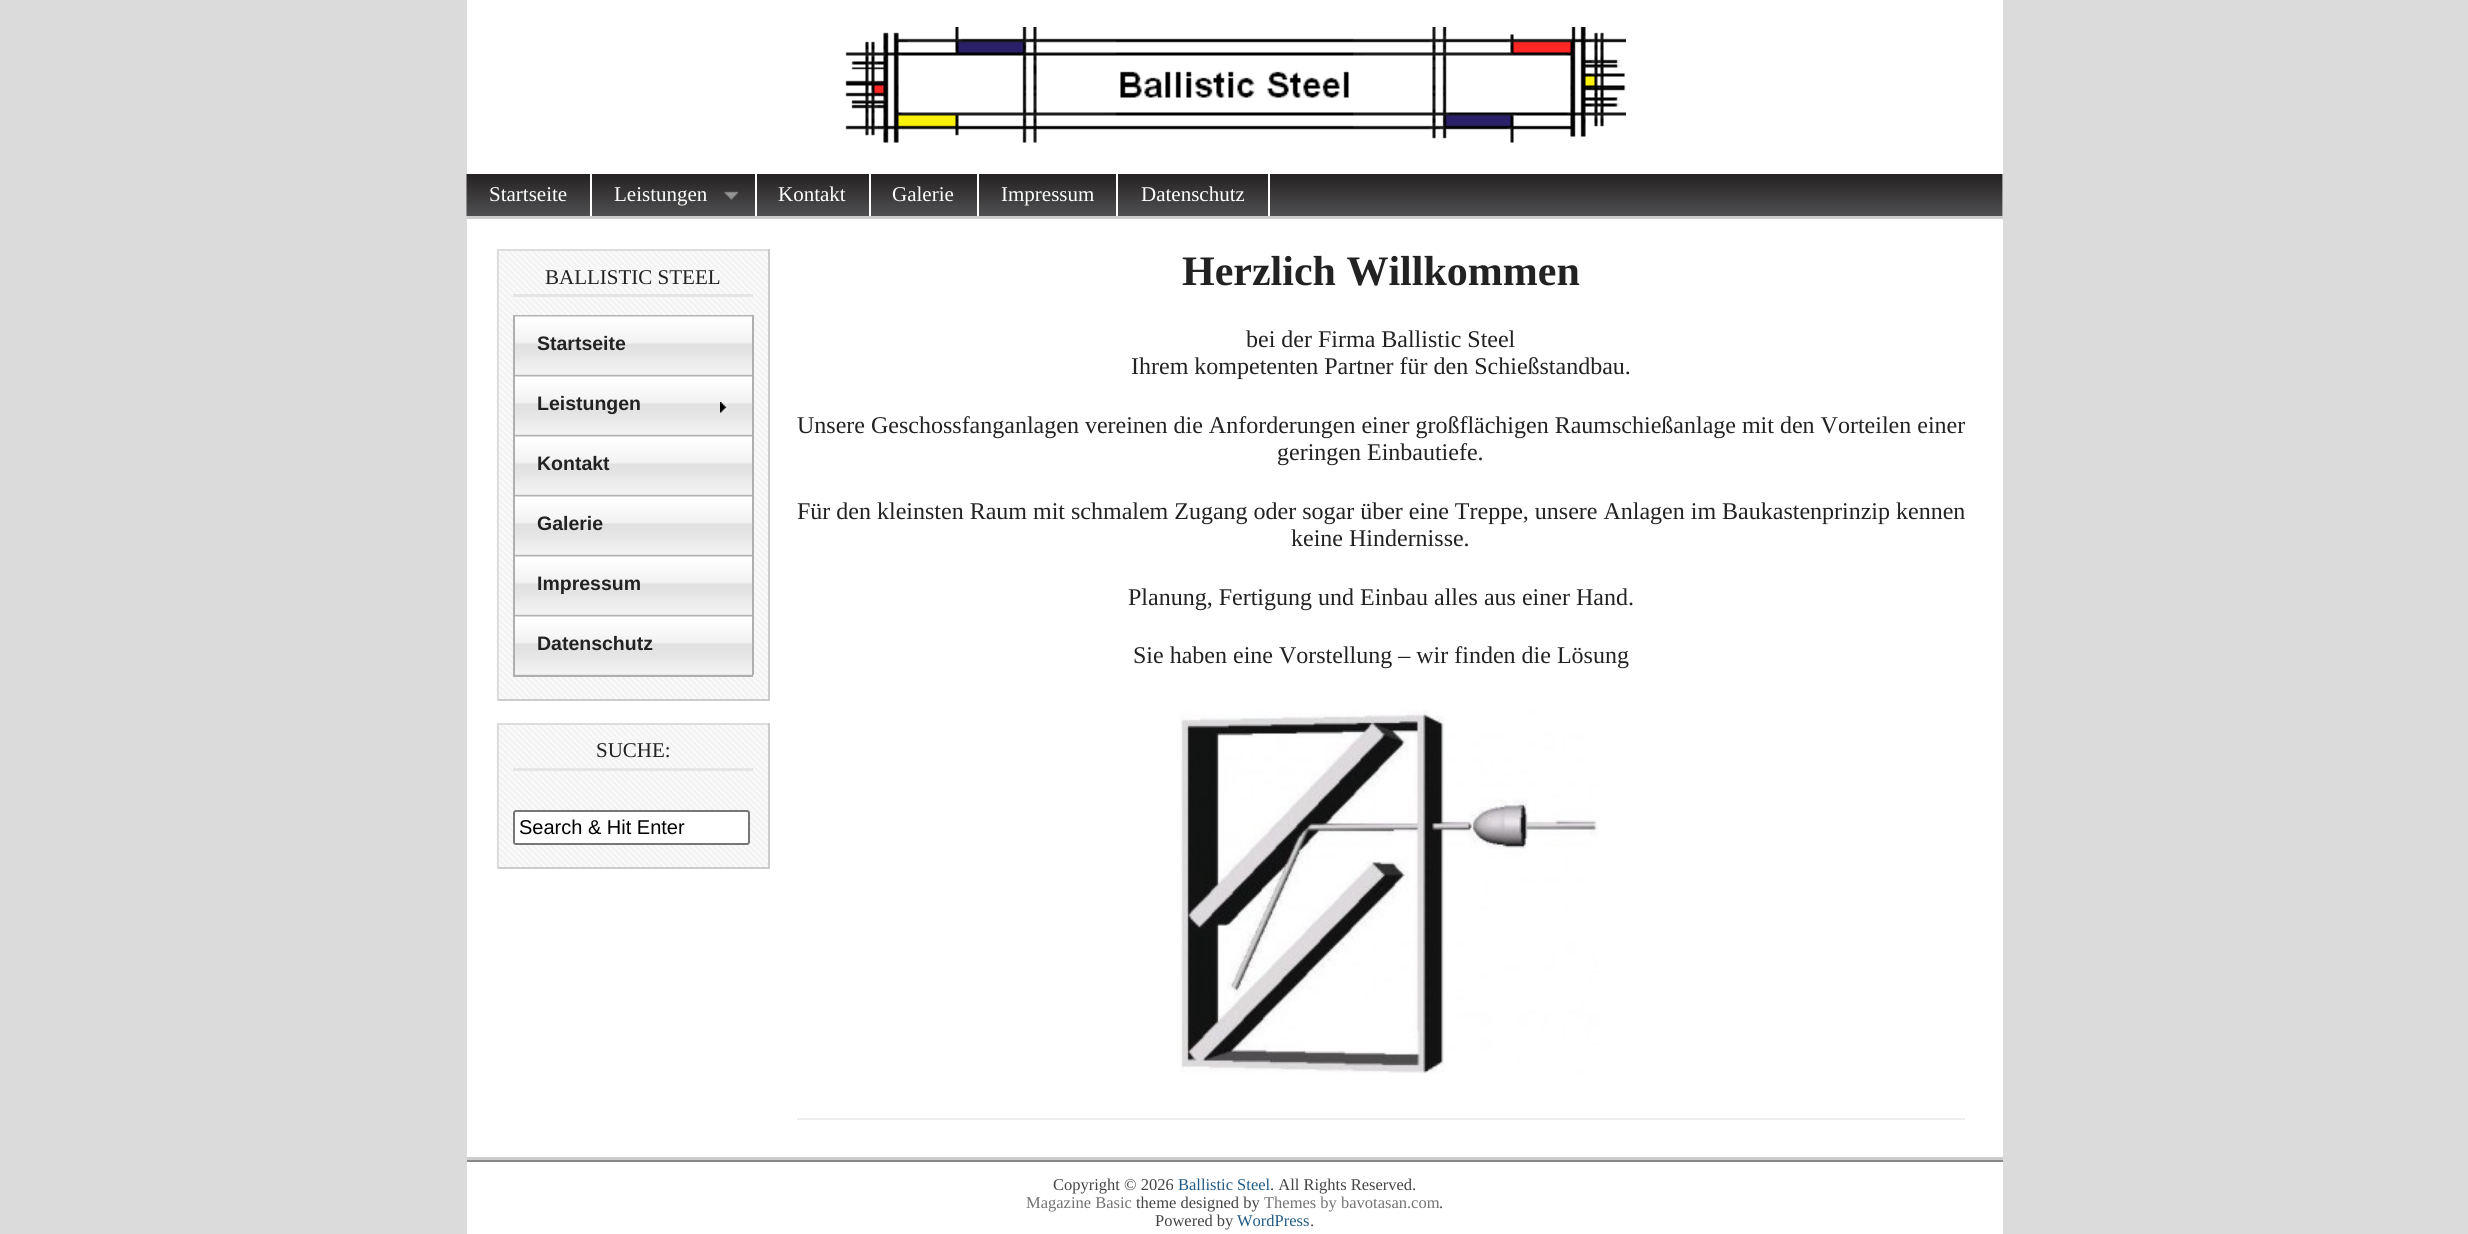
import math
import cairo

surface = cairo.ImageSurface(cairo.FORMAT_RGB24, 2468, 1234)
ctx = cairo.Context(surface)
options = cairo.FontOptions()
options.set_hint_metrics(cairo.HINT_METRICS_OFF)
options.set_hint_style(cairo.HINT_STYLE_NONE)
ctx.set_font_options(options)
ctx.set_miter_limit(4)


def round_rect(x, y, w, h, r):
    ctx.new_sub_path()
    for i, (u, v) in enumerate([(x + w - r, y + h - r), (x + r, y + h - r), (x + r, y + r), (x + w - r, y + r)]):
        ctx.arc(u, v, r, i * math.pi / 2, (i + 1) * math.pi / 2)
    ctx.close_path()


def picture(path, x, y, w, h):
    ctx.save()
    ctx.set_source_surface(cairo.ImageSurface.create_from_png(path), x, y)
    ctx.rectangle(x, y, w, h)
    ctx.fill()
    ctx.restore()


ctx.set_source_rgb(0.859, 0.859, 0.859)
ctx.paint()
ctx.set_source_rgb(1, 1, 1)
ctx.rectangle(467, 0, 1536, 216)
ctx.fill()
picture("img1.png", 845, 27, 781, 116)
picture("img2.png", 466, 174, 1537, 42)
ctx.rectangle(590, 174, 2, 42)
ctx.fill()
ctx.select_font_face("Liberation Serif")
ctx.set_font_size(21)
ctx.move_to(489, 201)
ctx.show_text("Startseite")
ctx.rectangle(755, 174, 2, 42)
ctx.fill()
ctx.move_to(614, 201)
ctx.show_text("Leistungen")
picture("img3.png", 724, 191, 14, 9)
ctx.rectangle(869, 174, 2, 42)
ctx.fill()
ctx.move_to(778, 201)
ctx.show_text("Kontakt")
ctx.rectangle(977, 174, 2, 42)
ctx.fill()
ctx.move_to(892, 201)
ctx.show_text("Galerie")
ctx.rectangle(1116, 174, 2, 42)
ctx.fill()
ctx.move_to(1001, 201)
ctx.show_text("Impressum")
ctx.rectangle(1268, 174, 2, 42)
ctx.fill()
ctx.move_to(1141, 201)
ctx.show_text("Datenschutz")
ctx.rectangle(467, 219, 1536, 938)
ctx.fill()
ctx.set_source_rgb(0.8, 0.8, 0.8)
ctx.rectangle(467, 216, 1536, 3)
ctx.fill()
ctx.rectangle(467, 1157, 1536, 3)
ctx.fill()
picture("img4.png", 496, 249, 272, 452)
ctx.set_source_rgb(0.867, 0.867, 0.867)
ctx.rectangle(497, 249, 273, 2)
ctx.fill()
ctx.set_source_rgb(0.8, 0.8, 0.8)
ctx.rectangle(768, 249, 2, 452)
ctx.fill()
ctx.rectangle(497, 699, 273, 2)
ctx.fill()
ctx.set_source_rgb(0.867, 0.867, 0.867)
ctx.rectangle(497, 249, 2, 452)
ctx.fill()
ctx.set_source_rgb(0.898, 0.898, 0.898)
ctx.rectangle(513, 294, 240, 3)
ctx.fill()
ctx.set_source_rgb(0.133, 0.133, 0.133)
ctx.move_to(545, 284)
ctx.show_text("BALLISTIC STEEL")
ctx.set_source_rgb(0.686, 0.686, 0.686)
ctx.rectangle(513, 675, 240, 2)
ctx.fill()
picture("img5.png", 515, 315, 237, 60)
ctx.rectangle(752, 315, 2, 60)
ctx.fill()
ctx.rectangle(513, 315, 2, 60)
ctx.fill()
ctx.select_font_face("Liberation Sans", cairo.FONT_SLANT_NORMAL, cairo.FONT_WEIGHT_BOLD)
ctx.set_font_size(19.5)
ctx.set_source_rgb(0.133, 0.133, 0.133)
ctx.move_to(537, 350)
ctx.show_text("Startseite")
picture("img5.png", 515, 375, 237, 60)
ctx.move_to(537, 410)
ctx.show_text("Leistungen")
picture("img6.png", 720, 402, 8, 11)
picture("img5.png", 515, 435, 237, 60)
ctx.set_source_rgb(0.686, 0.686, 0.686)
ctx.rectangle(752, 375, 2, 300)
ctx.fill()
ctx.rectangle(513, 375, 2, 300)
ctx.fill()
ctx.set_source_rgb(0.133, 0.133, 0.133)
ctx.move_to(537, 470)
ctx.show_text("Kontakt")
picture("img5.png", 515, 495, 237, 60)
ctx.move_to(537, 530)
ctx.show_text("Galerie")
picture("img5.png", 515, 555, 237, 60)
ctx.move_to(537, 590)
ctx.show_text("Impressum")
picture("img5.png", 515, 615, 237, 60)
ctx.move_to(537, 650)
ctx.show_text("Datenschutz")
picture("img7.png", 496, 723, 272, 146)
ctx.set_source_rgb(0.867, 0.867, 0.867)
ctx.rectangle(497, 723, 273, 2)
ctx.fill()
ctx.set_source_rgb(0.8, 0.8, 0.8)
ctx.rectangle(768, 723, 2, 146)
ctx.fill()
ctx.rectangle(497, 867, 273, 2)
ctx.fill()
ctx.set_source_rgb(0.867, 0.867, 0.867)
ctx.rectangle(497, 723, 2, 146)
ctx.fill()
ctx.set_source_rgb(0.898, 0.898, 0.898)
ctx.rectangle(513, 768, 240, 3)
ctx.fill()
ctx.select_font_face("Liberation Serif")
ctx.set_font_size(21)
ctx.set_source_rgb(0.133, 0.133, 0.133)
ctx.move_to(596, 757)
ctx.show_text("SUCHE:")
ctx.set_source_rgb(1, 1, 1)
round_rect(514, 811, 235, 33, 2)
ctx.fill_preserve()
ctx.set_source_rgb(0.463, 0.463, 0.463)
ctx.stroke()
ctx.select_font_face("Liberation Sans")
ctx.set_font_size(20)
ctx.set_source_rgb(0, 0, 0)
ctx.move_to(519, 834)
ctx.show_text("Search & Hit Enter")
ctx.set_source_rgb(0.933, 0.933, 0.933)
ctx.rectangle(797, 1118, 1168, 2)
ctx.fill()
ctx.select_font_face("Liberation Serif", cairo.FONT_SLANT_NORMAL, cairo.FONT_WEIGHT_BOLD)
ctx.set_font_size(42)
ctx.set_source_rgb(0.133, 0.133, 0.133)
ctx.move_to(1182, 285)
ctx.show_text("Herzlich Willkommen")
ctx.select_font_face("Liberation Serif")
ctx.set_font_size(24)
ctx.move_to(1246, 347)
ctx.show_text("bei der Firma Ballistic Steel")
ctx.move_to(1131, 374)
ctx.show_text("Ihrem kompetenten Partner für den Schießstandbau.")
ctx.move_to(797, 433)
ctx.show_text("Unsere Geschossfanganlagen vereinen die Anforderungen einer großflächigen Raumschießanlage mit den Vorteilen einer")
ctx.move_to(1277, 460)
ctx.show_text("geringen Einbautiefe.")
ctx.move_to(797, 519)
ctx.show_text("Für den kleinsten Raum mit schmalem Zugang oder sogar über eine Treppe, unsere Anlagen im Baukastenprinzip kennen")
ctx.move_to(1291, 546)
ctx.show_text("keine Hindernisse.")
ctx.move_to(1128, 605)
ctx.show_text("Planung, Fertigung und Einbau alles aus einer Hand.")
ctx.move_to(1133, 663)
ctx.show_text("Sie haben eine Vorstellung – wir finden die Lösung")
picture("img8.png", 1180, 709, 419, 365)
ctx.set_source_rgb(1, 1, 1)
ctx.rectangle(467, 1162, 1536, 72)
ctx.fill()
ctx.set_source_rgb(0.533, 0.533, 0.533)
ctx.rectangle(467, 1160, 1536, 2)
ctx.fill()
ctx.set_font_size(16.5)
ctx.set_source_rgb(0.267, 0.267, 0.267)
ctx.move_to(1053, 1190)
ctx.show_text("Copyright © 2026")
ctx.set_source_rgb(0.125, 0.357, 0.529)
ctx.move_to(1178, 1190)
ctx.show_text("Ballistic Steel")
ctx.set_source_rgb(0.267, 0.267, 0.267)
ctx.move_to(1270, 1190)
ctx.show_text(". All Rights Reserved.")
ctx.set_source_rgb(0.451, 0.451, 0.451)
ctx.move_to(1026, 1208)
ctx.show_text("Magazine Basic")
ctx.set_source_rgb(0.267, 0.267, 0.267)
ctx.move_to(1136, 1208)
ctx.show_text("theme designed by")
ctx.set_source_rgb(0.451, 0.451, 0.451)
ctx.move_to(1264, 1208)
ctx.show_text("Themes by bavotasan.com")
ctx.set_source_rgb(0.267, 0.267, 0.267)
ctx.move_to(1439, 1208)
ctx.show_text(".")
ctx.move_to(1155, 1226)
ctx.show_text("Powered by")
ctx.set_source_rgb(0.125, 0.357, 0.529)
ctx.move_to(1237, 1226)
ctx.show_text("WordPress")
ctx.set_source_rgb(0.267, 0.267, 0.267)
ctx.move_to(1310, 1226)
ctx.show_text(".")
surface.write_to_png("page.png")
